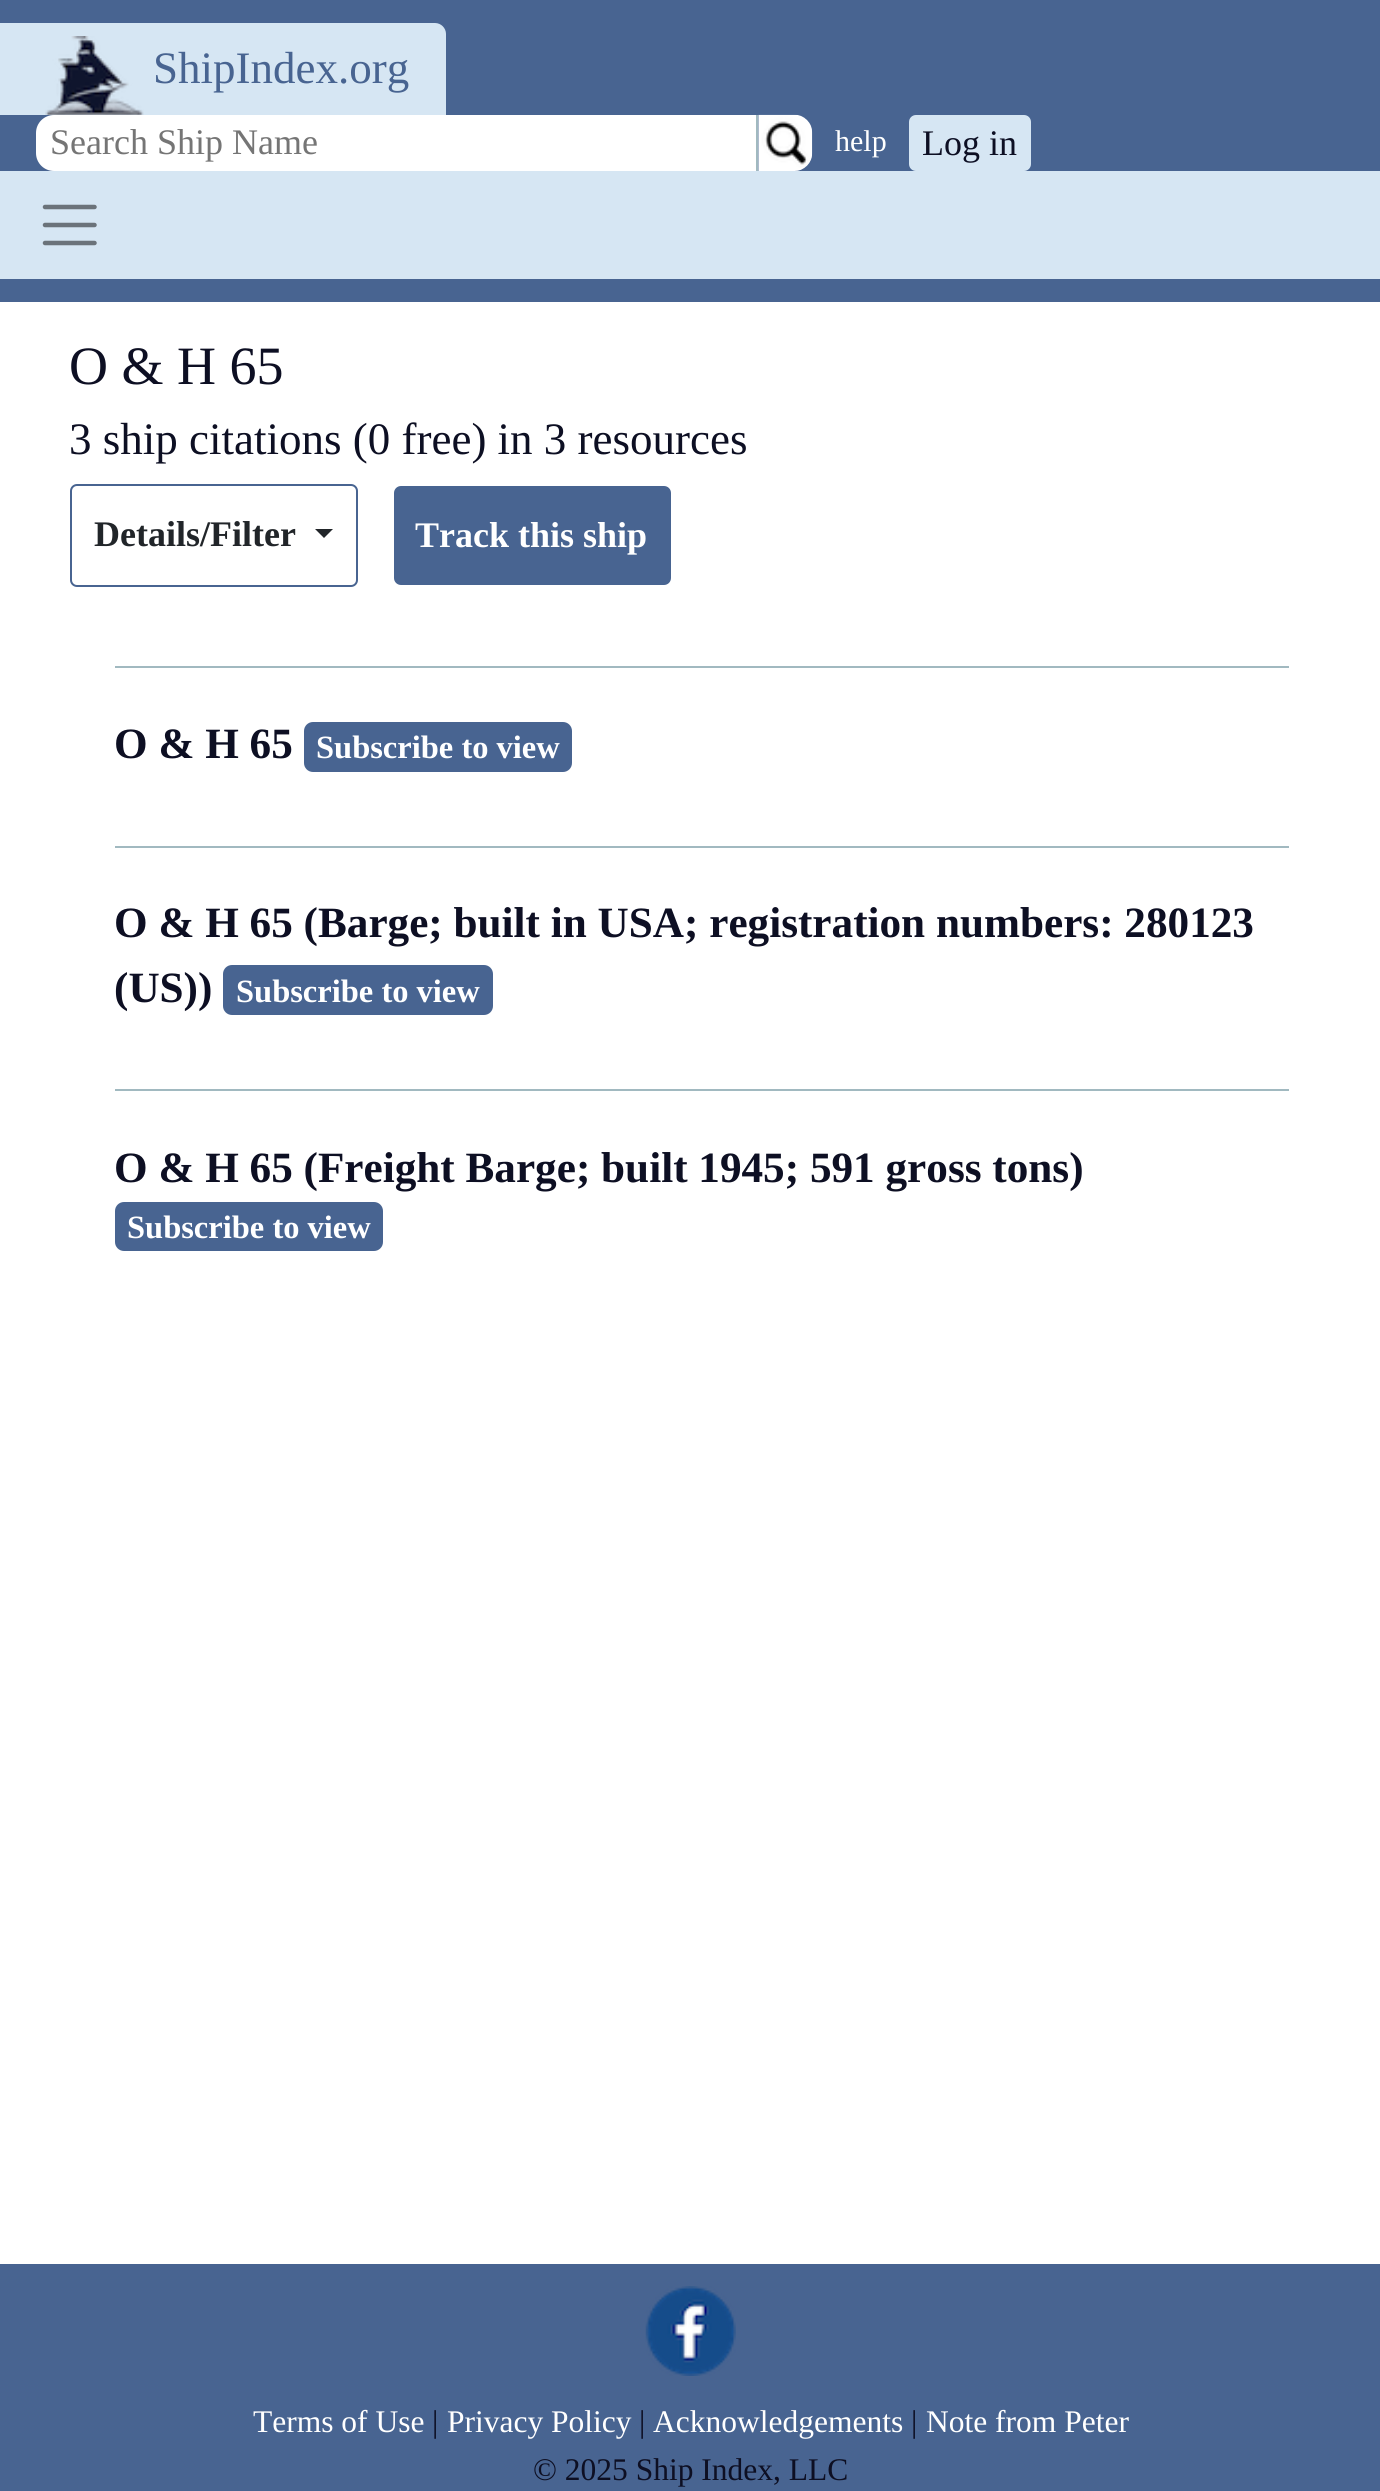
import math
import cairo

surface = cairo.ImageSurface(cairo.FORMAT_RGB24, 1380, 2491)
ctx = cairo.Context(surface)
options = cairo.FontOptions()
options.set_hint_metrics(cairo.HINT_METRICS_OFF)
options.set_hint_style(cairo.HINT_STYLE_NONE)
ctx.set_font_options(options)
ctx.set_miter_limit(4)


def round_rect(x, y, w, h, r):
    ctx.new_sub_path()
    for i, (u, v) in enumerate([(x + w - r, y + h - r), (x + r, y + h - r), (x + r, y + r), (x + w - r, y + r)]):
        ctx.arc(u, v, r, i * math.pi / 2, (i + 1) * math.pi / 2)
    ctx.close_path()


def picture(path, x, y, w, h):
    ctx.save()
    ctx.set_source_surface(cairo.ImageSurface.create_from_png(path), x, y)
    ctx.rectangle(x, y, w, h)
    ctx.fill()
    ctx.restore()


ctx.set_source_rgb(1, 1, 1)
ctx.paint()
ctx.set_source_rgb(0.282, 0.392, 0.569)
ctx.rectangle(0, 0, 1380, 302)
ctx.fill()
ctx.set_source_rgb(0.839, 0.902, 0.953)
ctx.new_path()
ctx.move_to(0, 23)
ctx.line_to(435, 23)
ctx.curve_to(441, 23, 446, 28, 446, 34)
ctx.line_to(446, 115)
ctx.line_to(0, 115)
ctx.close_path()
ctx.fill()
picture("img1.png", 45, 36, 99, 79)
ctx.select_font_face("Liberation Serif")
ctx.set_font_size(45)
ctx.set_source_rgb(0.282, 0.392, 0.569)
ctx.move_to(153, 83)
ctx.show_text("ShipIndex.org")
ctx.set_source_rgb(1, 1, 1)
ctx.new_path()
ctx.move_to(54, 115)
ctx.line_to(756, 115)
ctx.line_to(756, 171)
ctx.line_to(54, 171)
ctx.curve_to(44, 171, 36, 163, 36, 153)
ctx.line_to(36, 133)
ctx.curve_to(36, 123, 44, 115, 54, 115)
ctx.close_path()
ctx.fill()
ctx.set_font_size(36)
ctx.set_source_rgb(0.459, 0.459, 0.459)
ctx.move_to(50, 154)
ctx.show_text("Search Ship Name")
ctx.set_source_rgb(0.631, 0.725, 0.753)
ctx.rectangle(756, 115, 2, 56)
ctx.fill()
picture("img2.png", 758, 114, 55, 57)
ctx.set_font_size(30)
ctx.set_source_rgb(1, 1, 1)
ctx.move_to(835, 151)
ctx.show_text("help")
ctx.set_source_rgb(0.839, 0.902, 0.953)
round_rect(909, 115, 122, 56, 7)
ctx.fill()
ctx.set_font_size(36)
ctx.set_source_rgb(0.051, 0.059, 0.137)
ctx.move_to(922, 155)
ctx.show_text("Log in")
ctx.set_source_rgb(0.839, 0.902, 0.953)
ctx.rectangle(0, 171, 1380, 108)
ctx.fill()
ctx.new_path()
ctx.move_to(45, 207)
ctx.line_to(94.5, 207)
ctx.move_to(45, 225)
ctx.line_to(94.5, 225)
ctx.move_to(45, 243)
ctx.line_to(94.5, 243)
ctx.set_source_rgb(0.42, 0.451, 0.478)
ctx.set_line_width(4.5)
ctx.set_line_cap(cairo.LINE_CAP_ROUND)
ctx.stroke()
ctx.set_font_size(54)
ctx.set_source_rgb(0.051, 0.059, 0.137)
ctx.move_to(69, 384)
ctx.show_text("O & H 65")
ctx.set_font_size(45)
ctx.move_to(69, 454)
ctx.show_text("3 ship citations (0 free) in 3 resources")
round_rect(71, 485, 286, 101, 6)
ctx.set_source_rgb(0.282, 0.392, 0.569)
ctx.set_line_width(2)
ctx.set_line_cap(cairo.LINE_CAP_BUTT)
ctx.stroke()
ctx.select_font_face("Liberation Serif", cairo.FONT_SLANT_NORMAL, cairo.FONT_WEIGHT_BOLD)
ctx.set_font_size(36)
ctx.set_source_rgb(0.129, 0.145, 0.161)
ctx.move_to(94, 546)
ctx.show_text("Details/Filter")
ctx.new_path()
ctx.move_to(315, 529)
ctx.line_to(333, 529)
ctx.line_to(324, 538)
ctx.close_path()
ctx.fill()
ctx.set_source_rgb(0.282, 0.392, 0.569)
round_rect(394, 486, 277, 99, 7)
ctx.fill()
ctx.set_source_rgb(1, 1, 1)
ctx.move_to(415, 547)
ctx.show_text("Track this ship")
ctx.set_source_rgb(0.631, 0.725, 0.753)
ctx.rectangle(115, 666, 1174, 2)
ctx.fill()
ctx.set_font_size(43.2)
ctx.set_source_rgb(0.051, 0.059, 0.137)
ctx.move_to(114, 758)
ctx.show_text("O & H 65")
ctx.set_source_rgb(0.282, 0.392, 0.569)
round_rect(304, 722, 268, 50, 9)
ctx.fill()
ctx.set_font_size(32.5)
ctx.set_source_rgb(1, 1, 1)
ctx.move_to(316, 758)
ctx.show_text("Subscribe to view")
ctx.set_source_rgb(0.631, 0.725, 0.753)
ctx.rectangle(115, 846, 1174, 2)
ctx.fill()
ctx.set_font_size(43.2)
ctx.set_source_rgb(0.051, 0.059, 0.137)
ctx.move_to(114, 937)
ctx.show_text("O & H 65 (Barge; built in USA; registration numbers: 280123")
ctx.move_to(114, 1002)
ctx.show_text("(US))")
ctx.set_source_rgb(0.282, 0.392, 0.569)
round_rect(223, 965, 270, 50, 9)
ctx.fill()
ctx.set_font_size(32.5)
ctx.set_source_rgb(1, 1, 1)
ctx.move_to(236, 1002)
ctx.show_text("Subscribe to view")
ctx.set_source_rgb(0.631, 0.725, 0.753)
ctx.rectangle(115, 1089, 1174, 2)
ctx.fill()
ctx.set_font_size(43.2)
ctx.set_source_rgb(0.051, 0.059, 0.137)
ctx.move_to(114, 1182)
ctx.show_text("O & H 65 (Freight Barge; built 1945; 591 gross tons)")
ctx.set_source_rgb(0.282, 0.392, 0.569)
round_rect(115, 1202, 268, 49, 9)
ctx.fill()
ctx.set_font_size(32.5)
ctx.set_source_rgb(1, 1, 1)
ctx.move_to(127, 1238)
ctx.show_text("Subscribe to view")
ctx.set_source_rgb(0.282, 0.392, 0.569)
ctx.rectangle(0, 2264, 1380, 227)
ctx.fill()
picture("img3.png", 645, 2286, 91, 90)
ctx.select_font_face("Liberation Serif")
ctx.set_font_size(31.5)
ctx.set_source_rgb(1, 1, 1)
ctx.move_to(253, 2432)
ctx.show_text("Terms of Use")
ctx.set_source_rgb(0.051, 0.059, 0.137)
ctx.move_to(432, 2432)
ctx.show_text("|")
ctx.set_source_rgb(1, 1, 1)
ctx.move_to(447, 2432)
ctx.show_text("Privacy Policy")
ctx.set_source_rgb(0.051, 0.059, 0.137)
ctx.move_to(639, 2432)
ctx.show_text("|")
ctx.set_source_rgb(1, 1, 1)
ctx.move_to(653, 2432)
ctx.show_text("Acknowledgements")
ctx.set_source_rgb(0.051, 0.059, 0.137)
ctx.move_to(911, 2432)
ctx.show_text("|")
ctx.set_source_rgb(1, 1, 1)
ctx.move_to(926, 2432)
ctx.show_text("Note from Peter")
ctx.set_source_rgb(0.051, 0.059, 0.137)
ctx.move_to(533, 2480)
ctx.show_text("© 2025 Ship Index, LLC")
surface.write_to_png("page.png")
